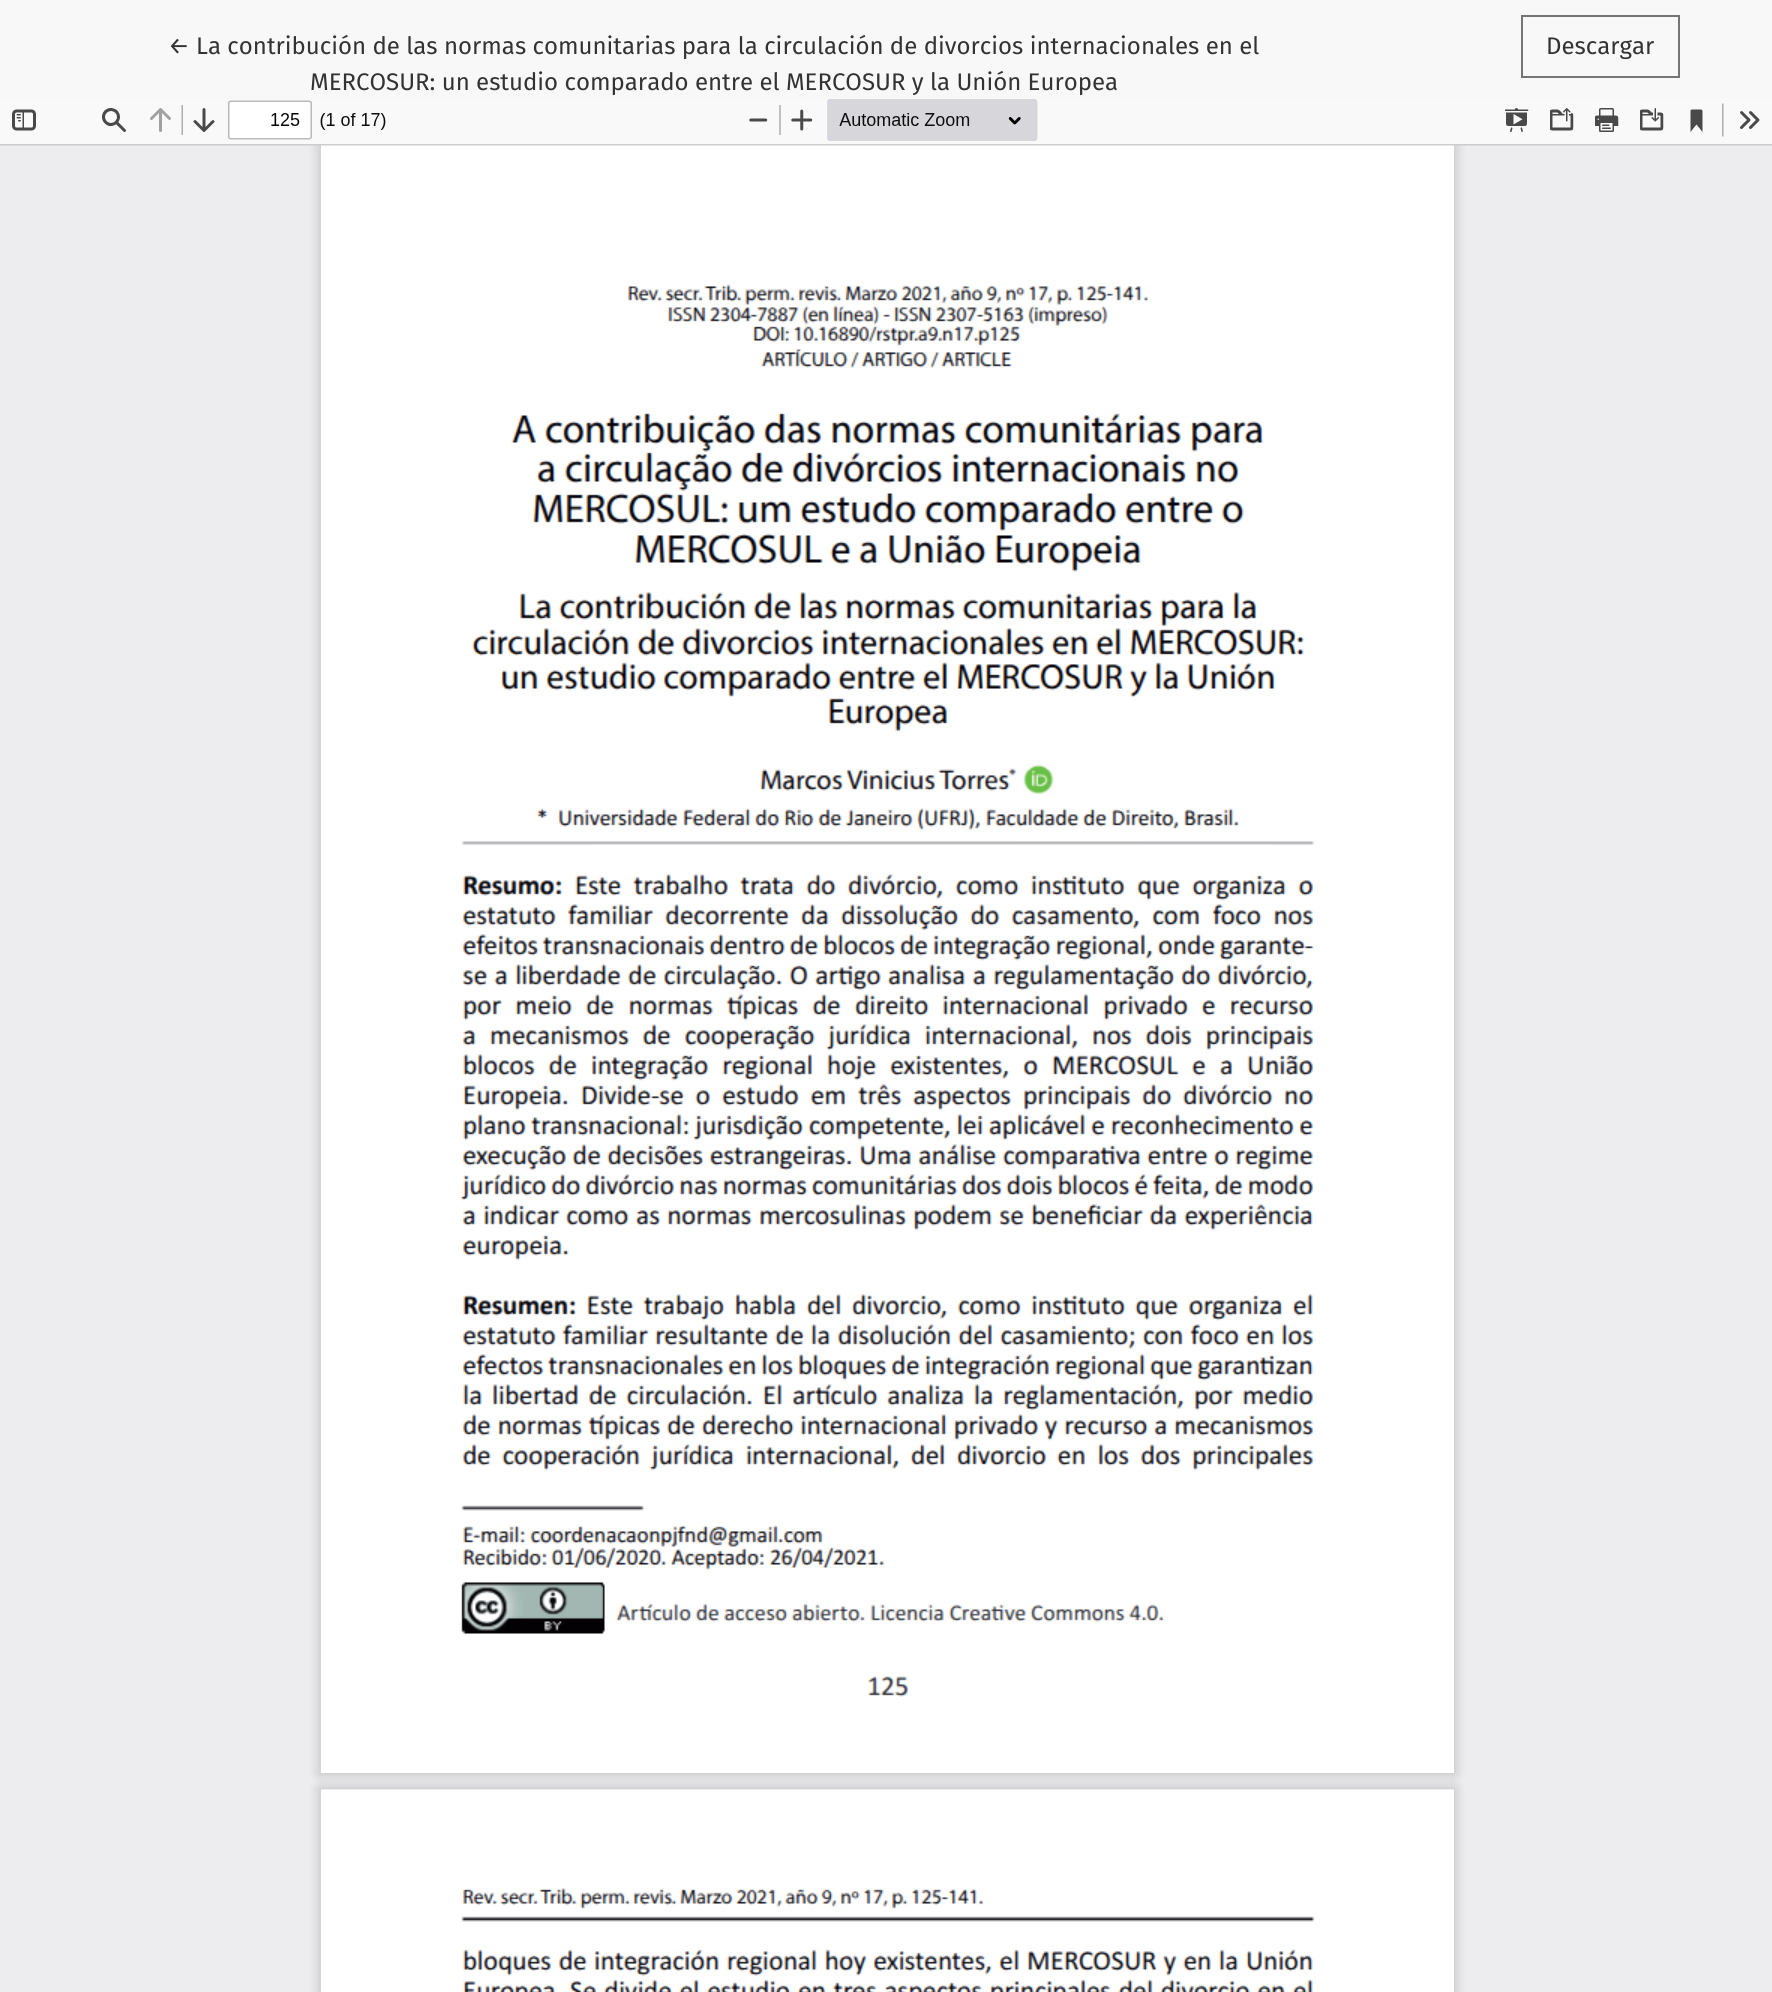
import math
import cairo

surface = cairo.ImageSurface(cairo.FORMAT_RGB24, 1772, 1992)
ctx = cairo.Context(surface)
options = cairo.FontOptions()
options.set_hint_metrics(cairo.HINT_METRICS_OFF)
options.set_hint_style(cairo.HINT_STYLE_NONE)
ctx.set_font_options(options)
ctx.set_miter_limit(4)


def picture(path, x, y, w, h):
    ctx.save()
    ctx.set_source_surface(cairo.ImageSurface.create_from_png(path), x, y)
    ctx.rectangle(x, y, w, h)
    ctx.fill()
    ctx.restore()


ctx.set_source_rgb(0.969, 0.969, 0.969)
ctx.paint()
ctx.select_font_face("Fira Sans")
ctx.set_font_size(24)
ctx.set_source_rgb(0.2, 0.2, 0.2)
ctx.move_to(168, 54)
ctx.show_text("← La contribución de las normas comunitarias para la circulación de divorcios internacionales en el")
ctx.move_to(310, 90)
ctx.show_text("MERCOSUR: un estudio comparado entre el MERCOSUR y la Unión Europea")
ctx.rectangle(1522, 16, 157, 61)
ctx.set_source_rgb(0.459, 0.459, 0.459)
ctx.stroke()
ctx.set_source_rgb(0.2, 0.2, 0.2)
ctx.move_to(1546, 54)
ctx.show_text("Descargar")
picture("img1.png", 0, 99, 1772, 1893)
surface.write_to_png("page.png")
